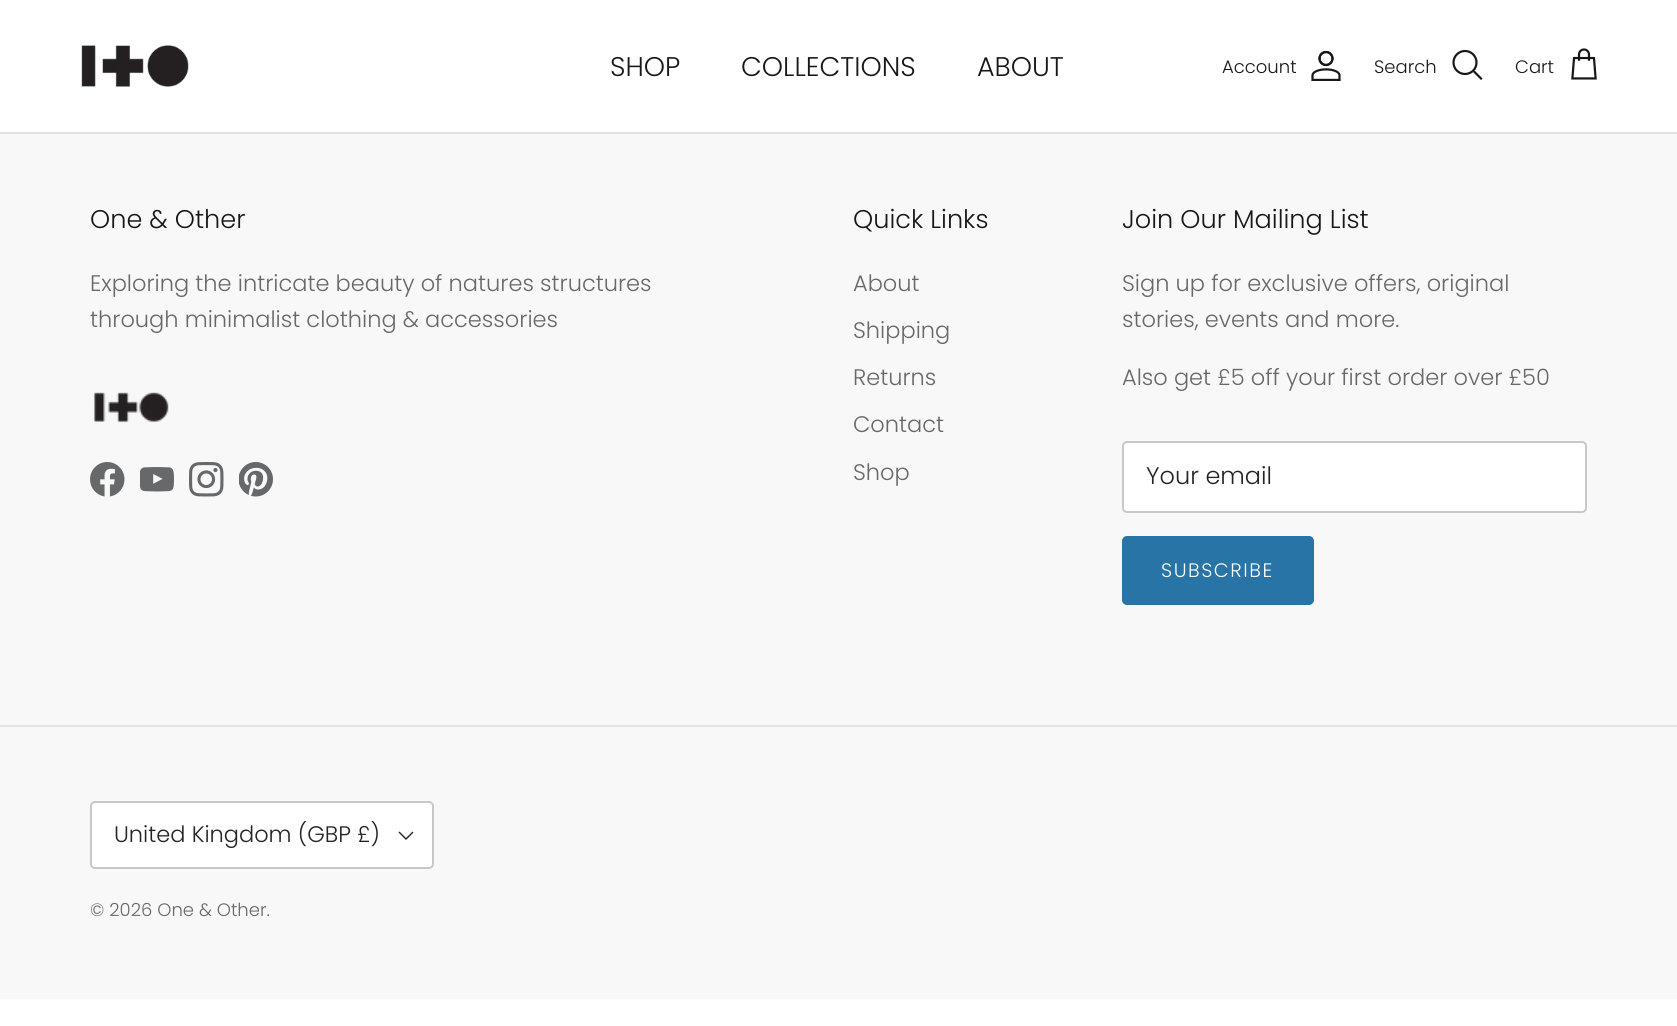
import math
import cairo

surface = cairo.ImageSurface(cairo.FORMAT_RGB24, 1677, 1026)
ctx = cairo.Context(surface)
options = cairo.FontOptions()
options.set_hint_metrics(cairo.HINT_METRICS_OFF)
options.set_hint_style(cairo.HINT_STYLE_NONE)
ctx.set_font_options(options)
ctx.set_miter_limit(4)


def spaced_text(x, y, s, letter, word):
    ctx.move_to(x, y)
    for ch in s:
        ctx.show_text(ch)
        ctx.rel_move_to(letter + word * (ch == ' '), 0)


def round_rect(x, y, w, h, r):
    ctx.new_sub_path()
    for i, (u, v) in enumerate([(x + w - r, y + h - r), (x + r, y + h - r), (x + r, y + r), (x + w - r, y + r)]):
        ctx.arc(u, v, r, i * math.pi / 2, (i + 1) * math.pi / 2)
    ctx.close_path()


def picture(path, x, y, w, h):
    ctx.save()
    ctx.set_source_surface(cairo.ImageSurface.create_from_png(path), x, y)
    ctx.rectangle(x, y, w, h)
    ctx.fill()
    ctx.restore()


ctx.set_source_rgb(1, 1, 1)
ctx.paint()
ctx.set_source_rgb(0.886, 0.886, 0.886)
ctx.rectangle(0, 132, 1677, 2)
ctx.fill()
picture("img1.png", 81, 45, 108, 42)
ctx.select_font_face("Poppins Light")
ctx.set_font_size(27)
ctx.set_source_rgb(0.09, 0.09, 0.09)
ctx.move_to(610, 76)
ctx.show_text("SHOP")
ctx.move_to(741, 76)
ctx.show_text("COLLECTIONS")
ctx.move_to(977, 76)
ctx.show_text("ABOUT")
ctx.set_font_size(18)
ctx.move_to(1222, 73)
ctx.show_text("Account")
picture("img2.png", 1311, 50, 30, 31)
ctx.move_to(1374, 73)
ctx.show_text("Search")
ctx.new_path()
ctx.arc(1465, 62.5, 11.5, 0, 2 * math.pi)
ctx.set_line_width(2.2)
ctx.stroke()
ctx.new_path()
ctx.move_to(1474.5, 72)
ctx.line_to(1481, 78.5)
ctx.set_line_cap(cairo.LINE_CAP_SQUARE)
ctx.stroke()
ctx.move_to(1515, 73)
ctx.show_text("Cart")
picture("img3.png", 1571, 48, 26, 32)
ctx.set_source_rgb(0.969, 0.969, 0.973)
ctx.rectangle(0, 134, 1677, 865)
ctx.fill()
ctx.set_font_size(25.6)
ctx.set_source_rgb(0.09, 0.09, 0.09)
ctx.move_to(90, 228)
ctx.show_text("One & Other")
ctx.set_font_size(22.5)
ctx.set_source_rgb(0.404, 0.408, 0.412)
ctx.move_to(90, 291)
ctx.show_text("Exploring the intricate beauty of natures structures")
ctx.move_to(90, 327)
ctx.show_text("through minimalist clothing & accessories")
picture("img4.png", 93, 392, 76, 31)
picture("img5.png", 90, 462, 35, 35)
picture("img6.png", 140, 467, 34, 25)
picture("img7.png", 189, 462, 35, 35)
picture("img8.png", 239, 462, 34, 35)
ctx.set_font_size(25.6)
ctx.set_source_rgb(0.09, 0.09, 0.09)
ctx.move_to(853, 228)
ctx.show_text("Quick Links")
ctx.set_font_size(22.5)
ctx.set_source_rgb(0.404, 0.408, 0.412)
ctx.move_to(853, 291)
ctx.show_text("About")
ctx.move_to(853, 338)
ctx.show_text("Shipping")
ctx.move_to(853, 385)
ctx.show_text("Returns")
ctx.move_to(853, 432)
ctx.show_text("Contact")
ctx.move_to(853, 480)
ctx.show_text("Shop")
ctx.set_font_size(25.6)
ctx.set_source_rgb(0.09, 0.09, 0.09)
ctx.move_to(1122, 228)
ctx.show_text("Join Our Mailing List")
ctx.set_font_size(22.5)
ctx.set_source_rgb(0.404, 0.408, 0.412)
ctx.move_to(1122, 291)
ctx.show_text("Sign up for exclusive offers, original")
ctx.move_to(1122, 327)
ctx.show_text("stories, events and more.")
ctx.move_to(1122, 385)
ctx.show_text("Also get £5 off your first order over £50")
ctx.set_source_rgb(1, 1, 1)
round_rect(1123, 442, 463, 70, 4)
ctx.fill_preserve()
ctx.set_source_rgb(0.784, 0.784, 0.784)
ctx.set_line_width(2)
ctx.set_line_cap(cairo.LINE_CAP_BUTT)
ctx.stroke()
ctx.set_font_size(24)
ctx.set_source_rgb(0.137, 0.137, 0.137)
ctx.move_to(1146, 484)
ctx.show_text("Your email")
ctx.set_source_rgb(0.157, 0.455, 0.651)
round_rect(1123, 537, 190, 67, 4)
ctx.fill_preserve()
ctx.stroke()
ctx.set_font_size(19.5)
ctx.set_source_rgb(1, 1, 1)
spaced_text(1161, 577, "SUBSCRIBE", 1.5, 0)
ctx.set_source_rgb(0.894, 0.894, 0.894)
ctx.rectangle(0, 725, 1677, 2)
ctx.fill()
ctx.set_source_rgb(1, 1, 1)
round_rect(91, 802, 342, 66, 4)
ctx.fill_preserve()
ctx.set_source_rgb(0.784, 0.784, 0.784)
ctx.stroke()
ctx.set_font_size(22.5)
ctx.set_source_rgb(0.137, 0.137, 0.137)
ctx.move_to(114, 842)
ctx.show_text("United Kingdom (GBP £)")
ctx.new_path()
ctx.move_to(413, 832)
ctx.line_to(406, 839)
ctx.line_to(399, 832)
ctx.set_line_width(1.4)
ctx.stroke()
ctx.set_font_size(18)
ctx.set_source_rgb(0.404, 0.408, 0.412)
ctx.move_to(90, 916)
ctx.show_text("© 2026 One & Other.")
surface.write_to_png("page.png")
